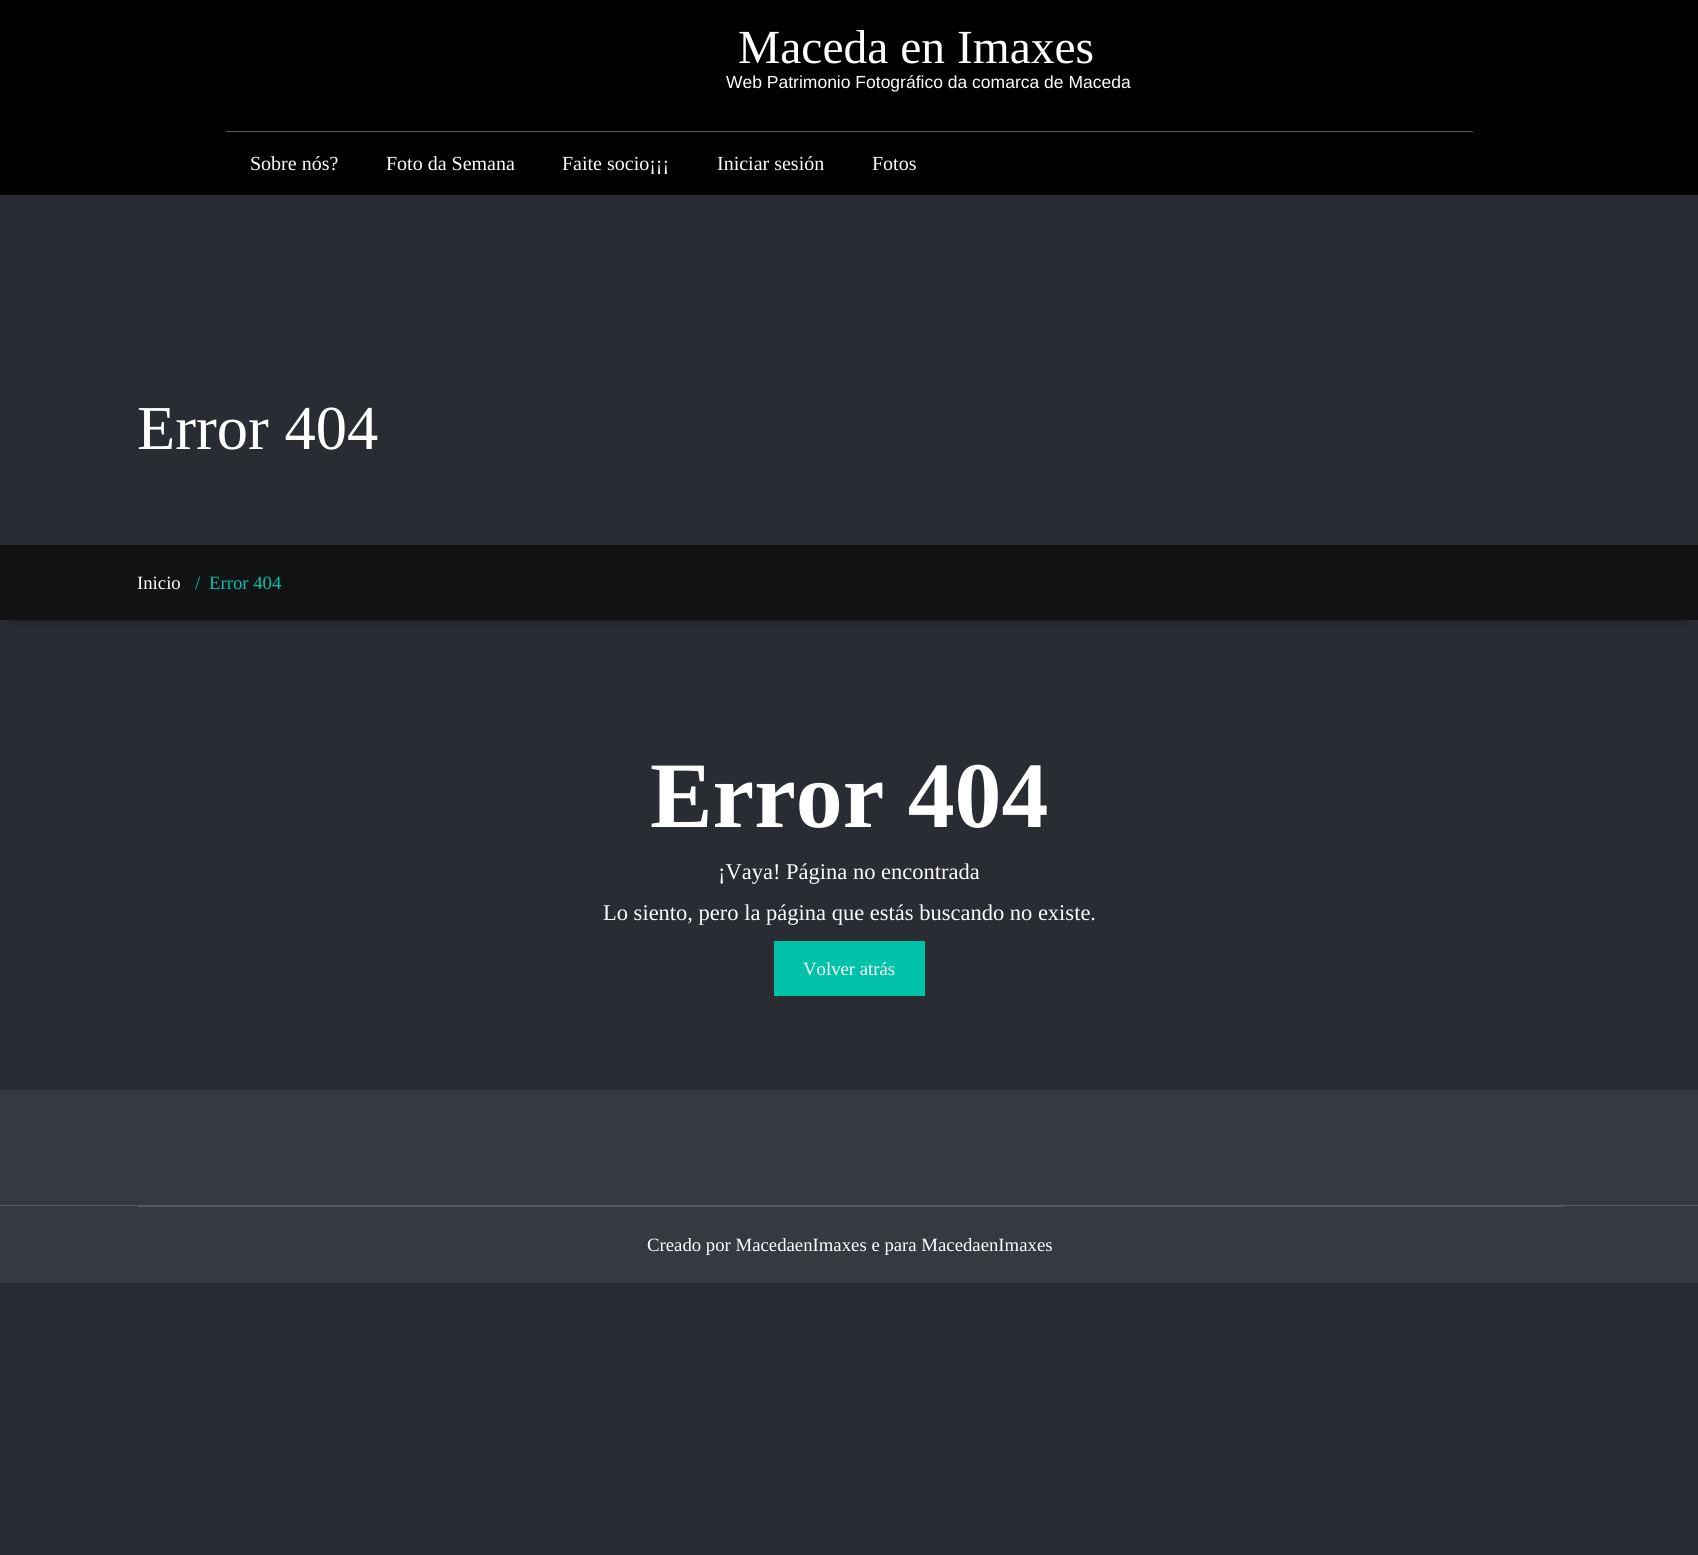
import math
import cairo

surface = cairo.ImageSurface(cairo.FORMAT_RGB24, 1698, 1555)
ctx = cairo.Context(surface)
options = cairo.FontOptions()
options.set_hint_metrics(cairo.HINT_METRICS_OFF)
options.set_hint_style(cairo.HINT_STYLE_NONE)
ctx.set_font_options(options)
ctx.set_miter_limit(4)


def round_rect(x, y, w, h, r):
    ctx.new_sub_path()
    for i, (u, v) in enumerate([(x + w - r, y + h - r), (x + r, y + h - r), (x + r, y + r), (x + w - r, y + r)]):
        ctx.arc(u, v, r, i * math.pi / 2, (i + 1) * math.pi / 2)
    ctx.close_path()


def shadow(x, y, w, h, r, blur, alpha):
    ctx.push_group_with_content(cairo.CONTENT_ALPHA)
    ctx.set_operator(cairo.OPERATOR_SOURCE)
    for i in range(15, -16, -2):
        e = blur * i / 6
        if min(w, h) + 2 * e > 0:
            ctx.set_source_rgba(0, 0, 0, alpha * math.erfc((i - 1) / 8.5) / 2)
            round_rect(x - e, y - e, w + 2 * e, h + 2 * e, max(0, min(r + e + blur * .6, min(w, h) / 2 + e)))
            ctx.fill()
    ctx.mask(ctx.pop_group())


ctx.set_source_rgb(0.165, 0.173, 0.2)
ctx.paint()
ctx.set_source_rgb(0, 0, 0)
ctx.rectangle(0, 0, 1698, 195)
ctx.fill()
ctx.set_source_rgb(0.373, 0.337, 0.337)
ctx.rectangle(226, 131, 1247, 1)
ctx.fill()
ctx.select_font_face("Liberation Serif")
ctx.set_font_size(47.5)
ctx.set_source_rgb(1, 1, 1)
ctx.move_to(738, 63)
ctx.show_text("Maceda en Imaxes")
ctx.select_font_face("Liberation Sans")
ctx.set_font_size(17.5)
ctx.move_to(726, 88)
ctx.show_text("Web Patrimonio Fotográfico da comarca de Maceda")
ctx.select_font_face("Liberation Serif")
ctx.set_font_size(20)
ctx.move_to(250, 170)
ctx.show_text("Sobre nós?")
ctx.move_to(386, 170)
ctx.show_text("Foto da Semana")
ctx.move_to(562, 170)
ctx.show_text("Faite socio¡¡¡")
ctx.move_to(717, 170)
ctx.show_text("Iniciar sesión")
ctx.move_to(872, 170)
ctx.show_text("Fotos")
ctx.save()
ctx.rectangle(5, 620, 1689, 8)
ctx.clip()
ctx.set_source_rgb(0, 0, 0)
shadow(13, 216, 1673, 400, 0, 6, 1)
ctx.restore()
ctx.set_font_size(62.5)
ctx.move_to(137, 449)
ctx.show_text("Error 404")
ctx.set_source_rgb(0.067, 0.071, 0.078)
ctx.rectangle(0, 545, 1698, 75)
ctx.fill()
ctx.set_font_size(18.75)
ctx.set_source_rgb(1, 1, 1)
ctx.move_to(137, 589)
ctx.show_text("Inicio")
ctx.set_source_rgb(0, 0.761, 0.663)
ctx.move_to(195, 589)
ctx.show_text("/")
ctx.move_to(209, 589)
ctx.show_text("Error 404")
ctx.select_font_face("Liberation Serif", cairo.FONT_SLANT_NORMAL, cairo.FONT_WEIGHT_BOLD)
ctx.set_font_size(93.75)
ctx.set_source_rgb(1, 1, 1)
ctx.move_to(650, 827)
ctx.show_text("Error 404")
ctx.select_font_face("Liberation Serif")
ctx.set_font_size(22.5)
ctx.move_to(718, 879)
ctx.show_text("¡Vaya! Página no encontrada")
ctx.move_to(603, 920)
ctx.show_text("Lo siento, pero la página que estás buscando no existe.")
ctx.set_source_rgb(0, 0.761, 0.663)
ctx.rectangle(774, 941, 151, 55)
ctx.fill()
ctx.set_font_size(18.75)
ctx.set_source_rgb(1, 1, 1)
ctx.move_to(803, 975)
ctx.show_text("Volver atrás")
ctx.set_source_rgb(0.216, 0.224, 0.255)
ctx.rectangle(0, 1090, 1698, 193)
ctx.fill()
ctx.set_source_rgb(0.341, 0.349, 0.388)
ctx.rectangle(0, 1205, 1698, 1)
ctx.fill()
ctx.rectangle(138, 1206, 1425, 1)
ctx.fill()
ctx.set_source_rgb(1, 1, 1)
ctx.move_to(647, 1251)
ctx.show_text("Creado por MacedaenImaxes e para MacedaenImaxes")
surface.write_to_png("page.png")
